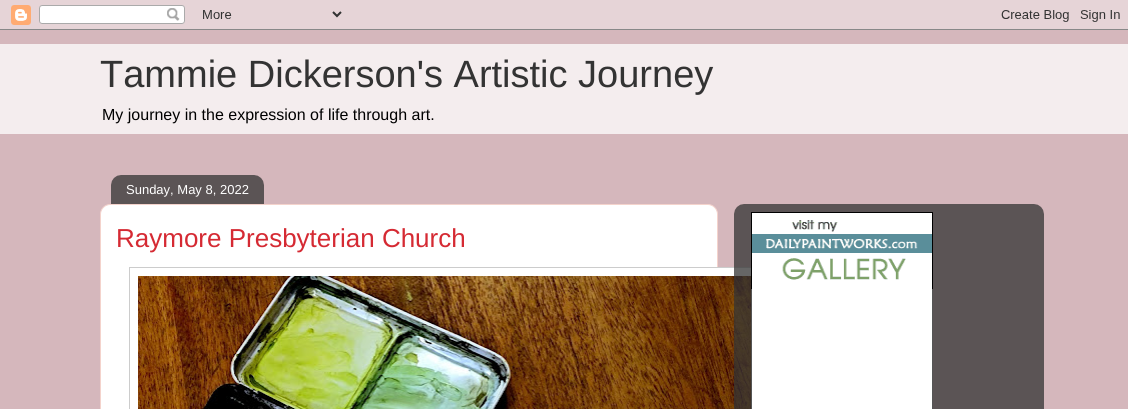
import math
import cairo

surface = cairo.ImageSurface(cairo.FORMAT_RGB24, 1128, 409)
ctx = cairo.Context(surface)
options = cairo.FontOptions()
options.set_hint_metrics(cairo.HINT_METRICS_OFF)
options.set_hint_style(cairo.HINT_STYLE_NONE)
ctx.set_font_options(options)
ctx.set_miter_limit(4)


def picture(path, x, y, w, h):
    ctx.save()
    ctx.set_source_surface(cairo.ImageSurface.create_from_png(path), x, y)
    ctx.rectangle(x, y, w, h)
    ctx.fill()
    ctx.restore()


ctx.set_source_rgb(0.835, 0.718, 0.737)
ctx.paint()
picture("img1.png", 0, 0, 1128, 30)
ctx.set_source_rgb(0.957, 0.929, 0.933)
ctx.rectangle(0, 44, 1128, 90)
ctx.fill()
ctx.select_font_face("Liberation Sans")
ctx.set_font_size(38)
ctx.set_source_rgb(0.2, 0.2, 0.2)
ctx.move_to(100, 87)
ctx.show_text("Tammie Dickerson's Artistic Journey")
ctx.set_font_size(16)
ctx.set_source_rgb(0, 0, 0)
ctx.move_to(102, 120)
ctx.show_text("My journey in the expression of life through art.")
ctx.set_source_rgb(1, 1, 1)
ctx.new_path()
ctx.move_to(110, 204.5)
ctx.line_to(708, 204.5)
ctx.curve_to(713, 204.5, 717.5, 209, 717.5, 214)
ctx.line_to(717.5, 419.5)
ctx.line_to(100.5, 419.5)
ctx.line_to(100.5, 214)
ctx.curve_to(100.5, 209, 105, 204.5, 110, 204.5)
ctx.close_path()
ctx.fill_preserve()
ctx.set_source_rgb(0.957, 0.827, 0.8)
ctx.set_line_width(1)
ctx.stroke()
picture("img2.png", 111, 175, 153, 29)
ctx.set_font_size(13)
ctx.set_source_rgb(1, 1, 1)
ctx.move_to(126, 194)
ctx.show_text("Sunday, May 8, 2022")
ctx.set_font_size(26)
ctx.set_source_rgb(0.835, 0.165, 0.2)
ctx.move_to(116, 247)
ctx.show_text("Raymore Presbyterian Church")
ctx.set_source_rgb(1, 1, 1)
ctx.rectangle(717, 268, 34, 141)
ctx.fill()
ctx.rectangle(129.5, 267.5, 653, 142)
ctx.set_source_rgb(0.8, 0.8, 0.8)
ctx.stroke()
picture("img3.png", 138, 276, 613, 133)
picture("img4.png", 734, 204, 310, 205)
ctx.set_source_rgb(0, 0, 0)
ctx.rectangle(751, 212, 182, 1)
ctx.fill()
ctx.rectangle(932, 212, 1, 77)
ctx.fill()
ctx.rectangle(751, 212, 1, 77)
ctx.fill()
picture("img5.png", 752, 213, 180, 76)
ctx.set_source_rgb(1, 1, 1)
ctx.rectangle(752, 289, 180, 120)
ctx.fill()
ctx.set_source_rgb(0.333, 0.333, 0.333)
ctx.rectangle(932, 289, 1, 120)
ctx.fill()
ctx.rectangle(751, 289, 1, 120)
ctx.fill()
surface.write_to_png("page.png")
